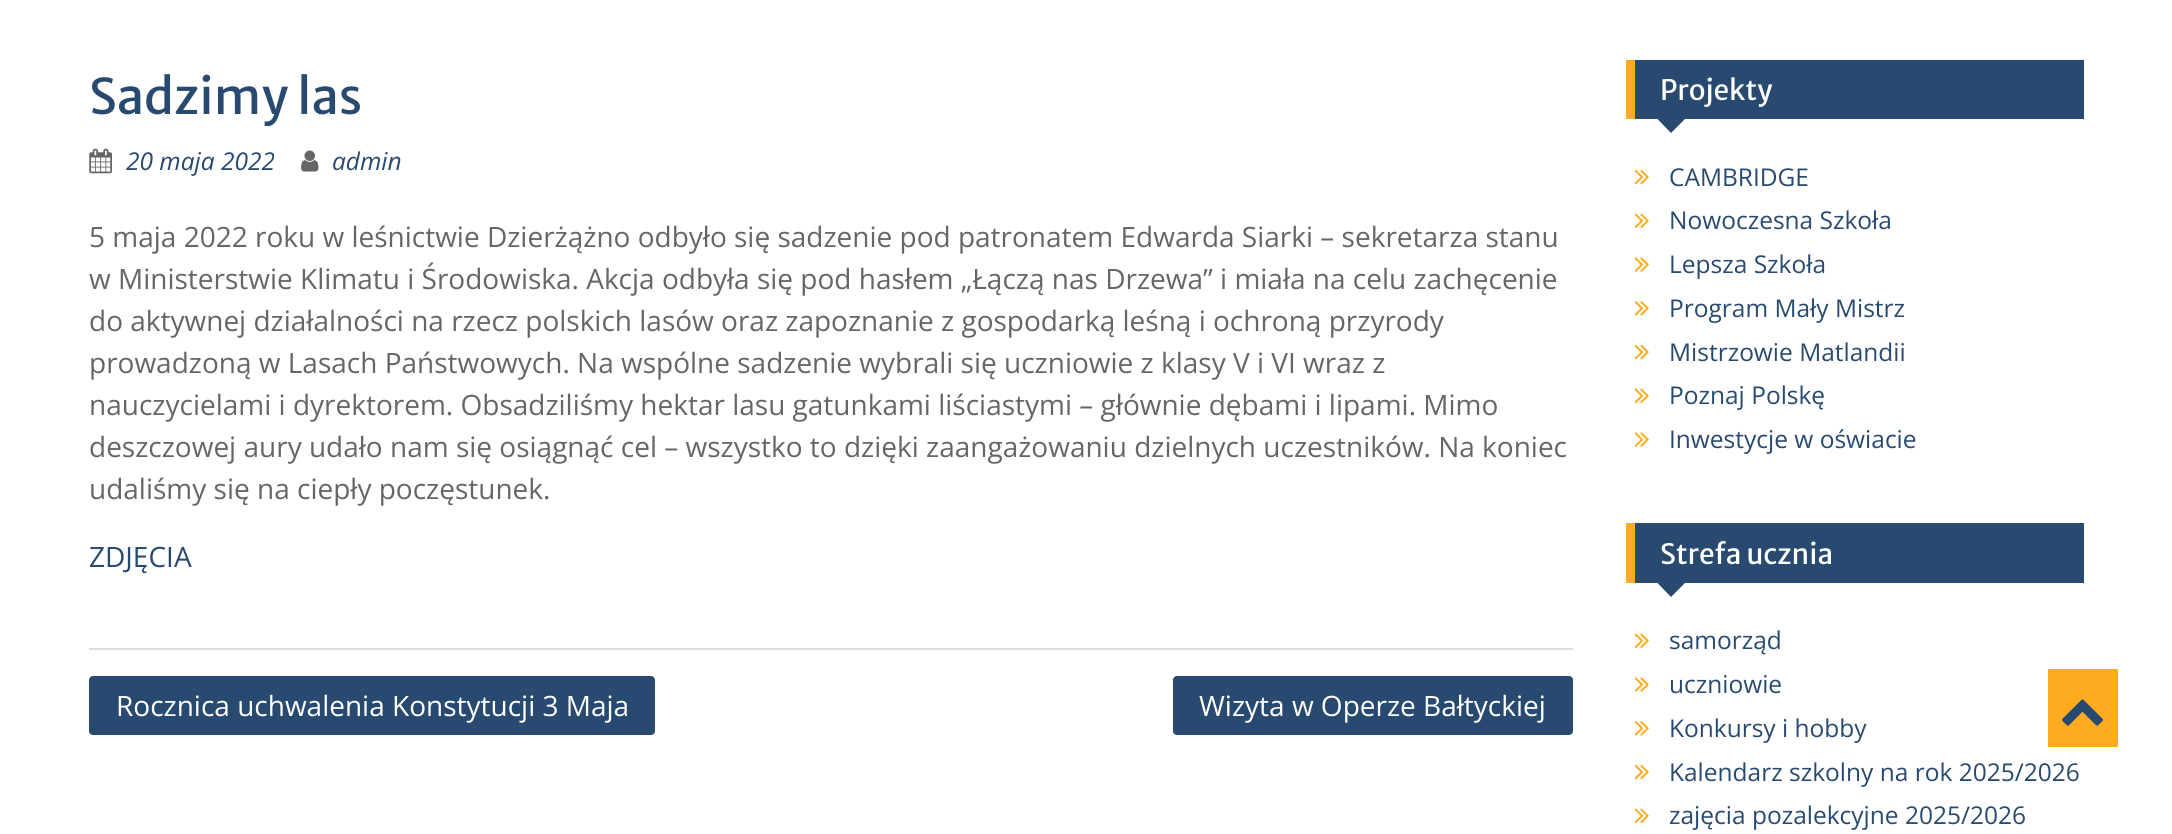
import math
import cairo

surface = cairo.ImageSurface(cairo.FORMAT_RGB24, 2172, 834)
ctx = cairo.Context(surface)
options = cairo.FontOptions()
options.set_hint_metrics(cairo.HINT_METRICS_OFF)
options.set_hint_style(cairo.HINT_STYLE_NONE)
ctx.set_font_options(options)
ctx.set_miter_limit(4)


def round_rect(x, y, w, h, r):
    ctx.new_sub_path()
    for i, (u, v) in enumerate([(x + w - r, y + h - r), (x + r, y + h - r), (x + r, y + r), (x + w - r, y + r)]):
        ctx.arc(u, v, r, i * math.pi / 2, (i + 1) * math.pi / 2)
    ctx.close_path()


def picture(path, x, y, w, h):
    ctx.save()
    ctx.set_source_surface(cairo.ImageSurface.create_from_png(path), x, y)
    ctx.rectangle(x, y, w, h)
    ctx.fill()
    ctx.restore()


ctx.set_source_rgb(1, 1, 1)
ctx.paint()
ctx.set_source_rgb(0.867, 0.867, 0.867)
ctx.rectangle(89, 648, 1484, 2)
ctx.fill()
ctx.select_font_face("Merriweather Sans")
ctx.set_font_size(49)
ctx.set_source_rgb(0.161, 0.29, 0.439)
ctx.move_to(89, 114)
ctx.show_text("Sadzimy las")
picture("img1.png", 89, 148, 23, 26)
ctx.select_font_face("Open Sans", cairo.FONT_SLANT_ITALIC)
ctx.set_font_size(24.5)
ctx.move_to(126, 170)
ctx.show_text("20 maja 2022")
picture("img2.png", 301, 150, 18, 22)
ctx.move_to(332, 170)
ctx.show_text("admin")
ctx.select_font_face("Open Sans")
ctx.set_font_size(28)
ctx.set_source_rgb(0.4, 0.4, 0.4)
ctx.move_to(89, 247)
ctx.show_text("5 maja 2022 roku w leśnictwie Dzierżążno odbyło się sadzenie pod patronatem Edwarda Siarki – sekretarza stanu")
ctx.move_to(89, 289)
ctx.show_text("w Ministerstwie Klimatu i Środowiska. Akcja odbyła się pod hasłem „Łączą nas Drzewa” i miała na celu zachęcenie")
ctx.move_to(89, 331)
ctx.show_text("do aktywnej działalności na rzecz polskich lasów oraz zapoznanie z gospodarką leśną i ochroną przyrody")
ctx.move_to(89, 373)
ctx.show_text("prowadzoną w Lasach Państwowych. Na wspólne sadzenie wybrali się uczniowie z klasy V i VI wraz z")
ctx.move_to(89, 415)
ctx.show_text("nauczycielami i dyrektorem. Obsadziliśmy hektar lasu gatunkami liściastymi – głównie dębami i lipami. Mimo")
ctx.move_to(89, 457)
ctx.show_text("deszczowej aury udało nam się osiągnąć cel – wszystko to dzięki zaangażowaniu dzielnych uczestników. Na koniec")
ctx.move_to(89, 499)
ctx.show_text("udaliśmy się na ciepły poczęstunek.")
ctx.set_source_rgb(0.161, 0.29, 0.439)
ctx.move_to(89, 567)
ctx.show_text("ZDJĘCIA")
round_rect(89, 676, 566, 59, 4)
ctx.fill()
ctx.set_source_rgb(1, 1, 1)
ctx.move_to(116, 716)
ctx.show_text("Rocznica uchwalenia Konstytucji 3 Maja")
ctx.set_source_rgb(0.161, 0.29, 0.439)
round_rect(1173, 676, 400, 59, 4)
ctx.fill()
ctx.set_source_rgb(1, 1, 1)
ctx.move_to(1199, 716)
ctx.show_text("Wizyta w Operze Bałtyckiej")
ctx.set_source_rgb(0.161, 0.29, 0.439)
ctx.rectangle(1635, 60, 449, 59)
ctx.fill()
ctx.set_source_rgb(1, 0.671, 0.122)
ctx.rectangle(1626, 60, 9, 59)
ctx.fill()
ctx.select_font_face("Merriweather Sans")
ctx.set_source_rgb(1, 1, 1)
ctx.move_to(1660, 100)
ctx.show_text("Projekty")
ctx.set_source_rgb(0.161, 0.29, 0.439)
ctx.new_path()
ctx.move_to(1655.5, 117)
ctx.line_to(1687, 117)
ctx.line_to(1671, 133)
ctx.close_path()
ctx.fill()
picture("img3.png", 1634, 169, 15, 16)
ctx.select_font_face("Open Sans")
ctx.set_font_size(24.5)
ctx.move_to(1669, 186)
ctx.show_text("CAMBRIDGE")
picture("img4.png", 1634, 213, 15, 16)
ctx.move_to(1669, 229)
ctx.show_text("Nowoczesna Szkoła")
picture("img5.png", 1634, 257, 15, 15)
ctx.move_to(1669, 273)
ctx.show_text("Lepsza Szkoła")
picture("img6.png", 1634, 301, 15, 15)
ctx.move_to(1669, 317)
ctx.show_text("Program Mały Mistrz")
picture("img3.png", 1634, 344, 15, 16)
ctx.move_to(1669, 361)
ctx.show_text("Mistrzowie Matlandii")
picture("img4.png", 1634, 388, 15, 16)
ctx.move_to(1669, 404)
ctx.show_text("Poznaj Polskę")
picture("img5.png", 1634, 432, 15, 15)
ctx.move_to(1669, 448)
ctx.show_text("Inwestycje w oświacie")
ctx.rectangle(1635, 523, 449, 60)
ctx.fill()
ctx.set_source_rgb(1, 0.671, 0.122)
ctx.rectangle(1626, 523, 9, 60)
ctx.fill()
ctx.select_font_face("Merriweather Sans")
ctx.set_font_size(28)
ctx.set_source_rgb(1, 1, 1)
ctx.move_to(1660, 564)
ctx.show_text("Strefa ucznia")
ctx.set_source_rgb(0.161, 0.29, 0.439)
ctx.new_path()
ctx.move_to(1655.5, 581)
ctx.line_to(1687, 581)
ctx.line_to(1671, 597)
ctx.close_path()
ctx.fill()
picture("img4.png", 1634, 633, 15, 16)
ctx.select_font_face("Open Sans")
ctx.set_font_size(24.5)
ctx.move_to(1669, 649)
ctx.show_text("samorząd")
picture("img5.png", 1634, 677, 15, 15)
ctx.move_to(1669, 693)
ctx.show_text("uczniowie")
picture("img6.png", 1634, 721, 15, 15)
ctx.move_to(1669, 737)
ctx.show_text("Konkursy i hobby")
picture("img3.png", 1634, 764, 15, 16)
ctx.move_to(1669, 781)
ctx.show_text("Kalendarz szkolny na rok 2025/2026")
picture("img4.png", 1634, 808, 15, 16)
ctx.move_to(1669, 824)
ctx.show_text("zajęcia pozalekcyjne 2025/2026")
ctx.set_source_rgb(1, 0.671, 0.122)
ctx.rectangle(2048, 669, 70, 78)
ctx.fill()
picture("img7.png", 2062, 699, 41, 27)
surface.write_to_png("page.png")
